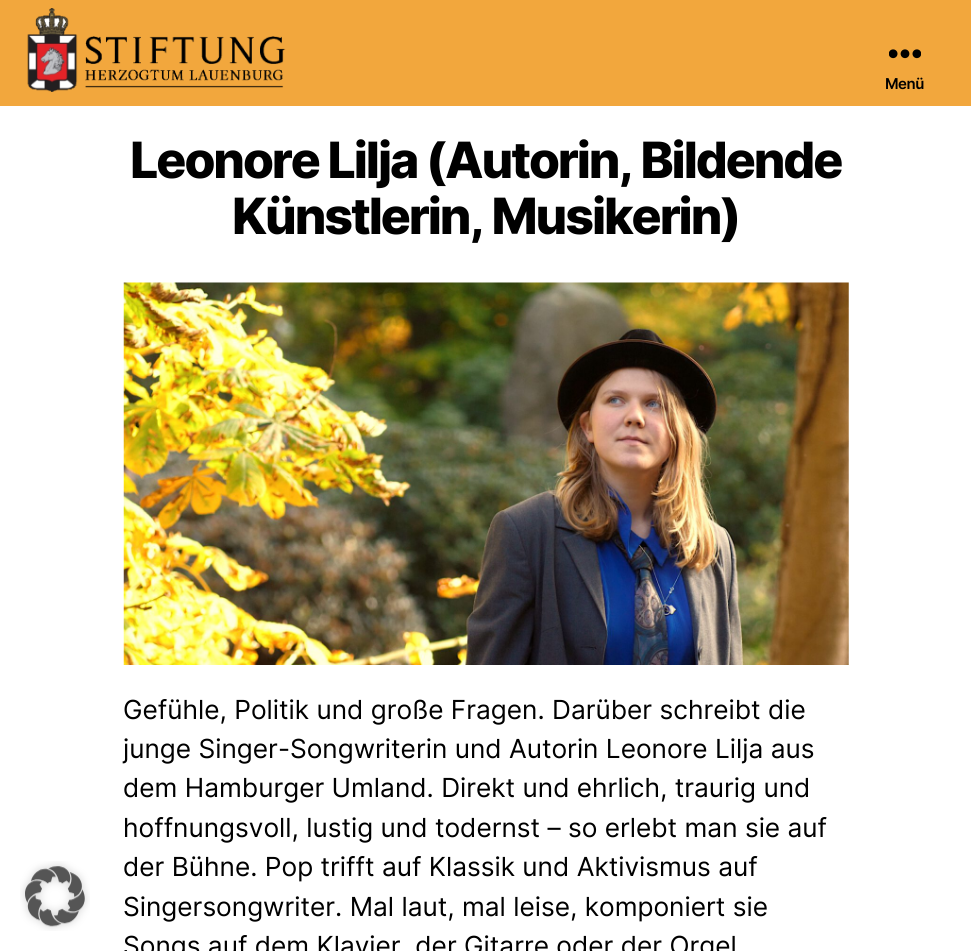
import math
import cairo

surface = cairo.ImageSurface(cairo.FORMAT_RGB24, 971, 951)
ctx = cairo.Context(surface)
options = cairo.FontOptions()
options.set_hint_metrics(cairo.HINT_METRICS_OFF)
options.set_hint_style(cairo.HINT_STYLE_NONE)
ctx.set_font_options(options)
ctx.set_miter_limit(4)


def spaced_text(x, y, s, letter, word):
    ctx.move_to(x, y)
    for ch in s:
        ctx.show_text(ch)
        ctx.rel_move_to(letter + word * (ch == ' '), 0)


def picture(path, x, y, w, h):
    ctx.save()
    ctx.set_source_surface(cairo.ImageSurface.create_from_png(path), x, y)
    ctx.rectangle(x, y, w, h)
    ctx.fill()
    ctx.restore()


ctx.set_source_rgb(1, 1, 1)
ctx.paint()
ctx.set_source_rgb(0.949, 0.655, 0.239)
ctx.rectangle(0, 0, 971, 106)
ctx.fill()
picture("img1.png", 27, 8, 259, 84)
picture("img2.png", 889, 49, 32, 10)
ctx.select_font_face("Inter SemiBold")
ctx.set_font_size(15)
ctx.set_source_rgb(0, 0, 0)
spaced_text(885, 89, "Menü", -0.5, 0)
picture("img3.png", 20, 861, 70, 70)
ctx.select_font_face("Inter ExtraBold")
ctx.set_font_size(50)
spaced_text(130, 178, "Leonore Lilja (Autorin, Bildende", -2.1, 0)
spaced_text(232, 234, "Künstlerin, Musikerin)", -2.1, 0)
picture("img4.png", 123, 282, 726, 383)
ctx.select_font_face("Inter")
ctx.set_font_size(26.25)
ctx.move_to(123, 719)
ctx.show_text("Gefühle, Politik und große Fragen. Darüber schreibt die")
ctx.move_to(123, 758)
ctx.show_text("junge Singer-Songwriterin und Autorin Leonore Lilja aus")
ctx.move_to(123, 797)
ctx.show_text("dem Hamburger Umland. Direkt und ehrlich, traurig und")
ctx.move_to(123, 837)
ctx.show_text("hoffnungsvoll, lustig und todernst – so erlebt man sie auf")
ctx.move_to(123, 876)
ctx.show_text("der Bühne. Pop trifft auf Klassik und Aktivismus auf")
ctx.move_to(123, 916)
ctx.show_text("Singersongwriter. Mal laut, mal leise, komponiert sie")
ctx.move_to(123, 955)
ctx.show_text("Songs auf dem Klavier, der Gitarre oder der Orgel")
surface.write_to_png("page.png")
